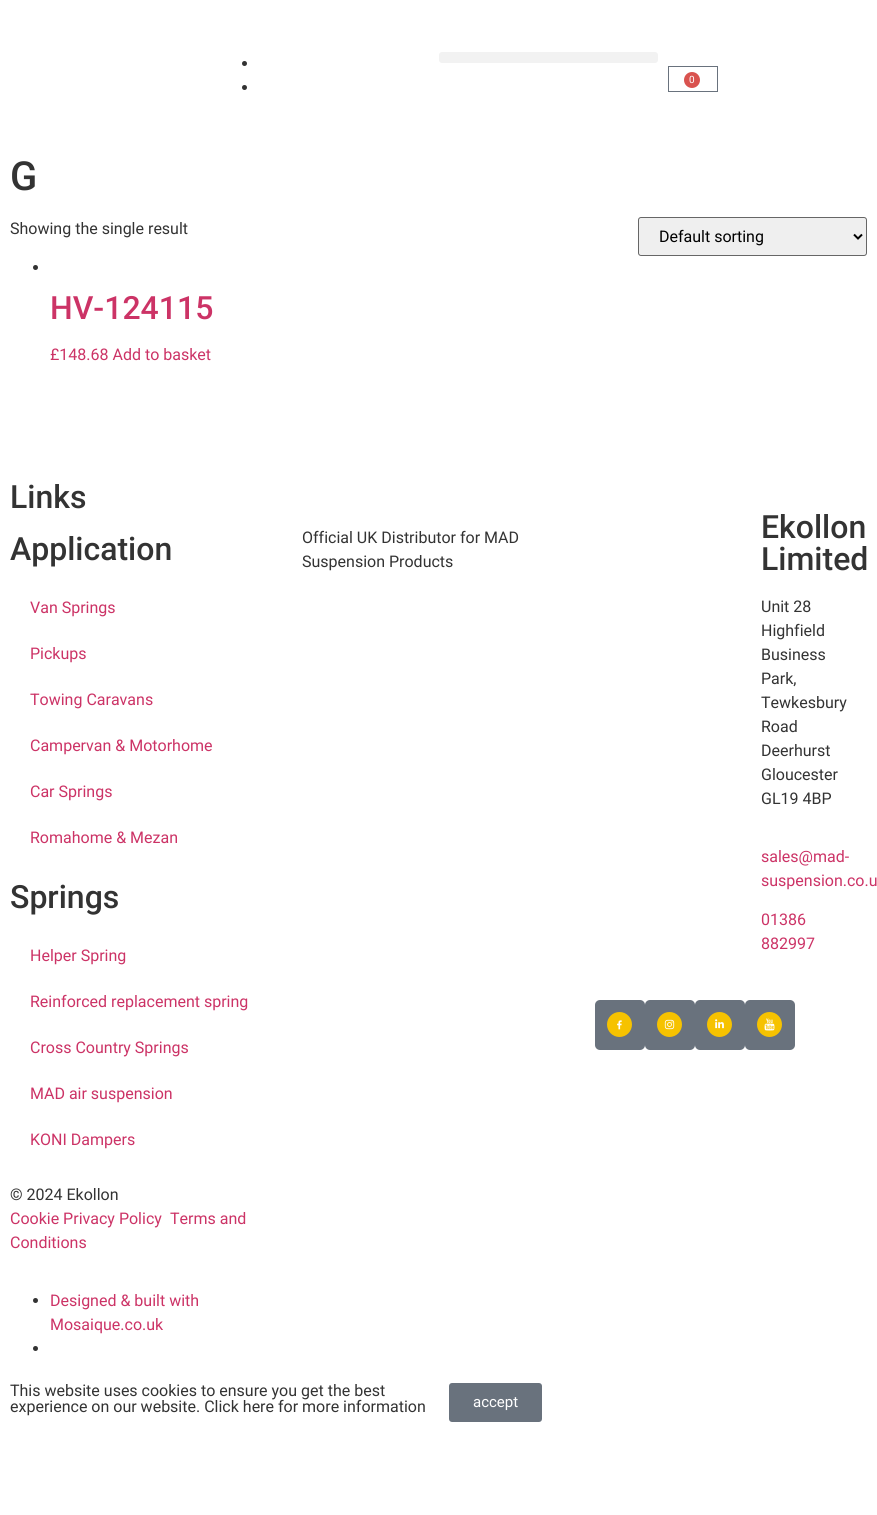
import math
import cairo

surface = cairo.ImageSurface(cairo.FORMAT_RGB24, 877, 1515)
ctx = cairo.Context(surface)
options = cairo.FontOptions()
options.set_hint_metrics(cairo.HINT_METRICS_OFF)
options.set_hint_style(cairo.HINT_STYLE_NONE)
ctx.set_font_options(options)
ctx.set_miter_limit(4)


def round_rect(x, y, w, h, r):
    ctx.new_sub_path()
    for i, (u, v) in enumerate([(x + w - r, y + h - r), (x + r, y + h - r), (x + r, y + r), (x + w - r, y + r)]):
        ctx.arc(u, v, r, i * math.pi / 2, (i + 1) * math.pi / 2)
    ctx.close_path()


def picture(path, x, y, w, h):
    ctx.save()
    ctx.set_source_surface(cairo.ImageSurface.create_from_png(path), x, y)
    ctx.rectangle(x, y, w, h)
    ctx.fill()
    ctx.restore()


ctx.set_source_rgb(1, 1, 1)
ctx.paint()
ctx.set_source_rgb(0.949, 0.949, 0.949)
round_rect(439, 52, 219, 11, 3)
ctx.fill()
ctx.set_source_rgb(0.2, 0.2, 0.2)
ctx.arc(244.5, 63.5, 2.5, 0, 2 * math.pi)
ctx.fill()
ctx.arc(244.5, 87.5, 2.5, 0, 2 * math.pi)
ctx.fill()
ctx.rectangle(668.5, 66.5, 49, 25)
ctx.set_source_rgb(0.412, 0.447, 0.49)
ctx.set_line_width(1)
ctx.stroke()
ctx.set_source_rgb(0.851, 0.325, 0.31)
ctx.arc(692, 80, 8, 0, 2 * math.pi)
ctx.fill()
ctx.select_font_face("Roboto")
ctx.set_font_size(10)
ctx.set_source_rgb(1, 1, 1)
ctx.move_to(689, 83)
ctx.show_text("0")
ctx.select_font_face("Roboto Medium")
ctx.set_font_size(40)
ctx.set_source_rgb(0.2, 0.2, 0.2)
ctx.move_to(10, 190)
ctx.show_text("G")
ctx.select_font_face("Roboto")
ctx.set_font_size(16)
ctx.move_to(10, 234)
ctx.show_text("Showing the single result")
ctx.set_source_rgb(0.937, 0.937, 0.937)
round_rect(638.5, 217.5, 228, 38, 2.5)
ctx.fill_preserve()
ctx.set_source_rgb(0.4, 0.4, 0.4)
ctx.stroke()
ctx.new_path()
ctx.move_to(854, 234.5)
ctx.line_to(858, 238.5)
ctx.line_to(862, 234.5)
ctx.set_source_rgb(0, 0, 0)
ctx.set_line_width(2)
ctx.stroke()
ctx.move_to(659, 242)
ctx.show_text("Default sorting")
ctx.set_source_rgb(0.2, 0.2, 0.2)
ctx.new_path()
ctx.arc(35.5, 267.5, 2.5, 0, 2 * math.pi)
ctx.fill()
ctx.select_font_face("Roboto Medium")
ctx.set_font_size(32)
ctx.set_source_rgb(0.8, 0.2, 0.4)
ctx.move_to(50, 319)
ctx.show_text("HV-124115")
ctx.select_font_face("Roboto")
ctx.set_font_size(16)
ctx.move_to(50, 360)
ctx.show_text("£148.68 Add to basket")
ctx.select_font_face("Roboto Medium")
ctx.set_font_size(32)
ctx.set_source_rgb(0.2, 0.2, 0.2)
ctx.move_to(10, 508)
ctx.show_text("Links")
ctx.move_to(10, 560)
ctx.show_text("Application")
ctx.select_font_face("Roboto")
ctx.set_font_size(16)
ctx.set_source_rgb(0.8, 0.2, 0.4)
ctx.move_to(30, 613)
ctx.show_text("Van Springs")
ctx.move_to(30, 659)
ctx.show_text("Pickups")
ctx.move_to(30, 705)
ctx.show_text("Towing Caravans")
ctx.move_to(30, 751)
ctx.show_text("Campervan & Motorhome")
ctx.move_to(30, 797)
ctx.show_text("Car Springs")
ctx.move_to(30, 843)
ctx.show_text("Romahome & Mezan")
ctx.select_font_face("Roboto Medium")
ctx.set_font_size(32)
ctx.set_source_rgb(0.2, 0.2, 0.2)
ctx.move_to(10, 908)
ctx.show_text("Springs")
ctx.select_font_face("Roboto")
ctx.set_font_size(16)
ctx.set_source_rgb(0.8, 0.2, 0.4)
ctx.move_to(30, 961)
ctx.show_text("Helper Spring")
ctx.move_to(30, 1007)
ctx.show_text("Reinforced replacement spring")
ctx.move_to(30, 1053)
ctx.show_text("Cross Country Springs")
ctx.move_to(30, 1099)
ctx.show_text("MAD air suspension")
ctx.move_to(30, 1145)
ctx.show_text("KONI Dampers")
ctx.set_source_rgb(0.2, 0.2, 0.2)
ctx.move_to(10, 1200)
ctx.show_text("© 2024 Ekollon")
ctx.set_source_rgb(0.8, 0.2, 0.4)
ctx.move_to(10, 1224)
ctx.show_text("Cookie Privacy Policy")
ctx.move_to(170, 1224)
ctx.show_text("Terms and")
ctx.move_to(10, 1248)
ctx.show_text("Conditions")
ctx.set_source_rgb(0.2, 0.2, 0.2)
ctx.new_path()
ctx.arc(35.5, 1300.5, 2.5, 0, 2 * math.pi)
ctx.fill()
ctx.set_source_rgb(0.8, 0.2, 0.4)
ctx.move_to(50, 1306)
ctx.show_text("Designed & built with")
ctx.move_to(50, 1330)
ctx.show_text("Mosaique.co.uk")
ctx.set_source_rgb(0.2, 0.2, 0.2)
ctx.new_path()
ctx.arc(35.5, 1348.5, 2.5, 0, 2 * math.pi)
ctx.fill()
ctx.move_to(302, 543)
ctx.show_text("Official UK Distributor for MAD")
ctx.move_to(302, 567)
ctx.show_text("Suspension Products")
ctx.select_font_face("Roboto Medium")
ctx.set_font_size(32)
ctx.move_to(761, 538)
ctx.show_text("Ekollon")
ctx.move_to(761, 570)
ctx.show_text("Limited")
ctx.select_font_face("Roboto")
ctx.set_font_size(16)
ctx.move_to(761, 612)
ctx.show_text("Unit 28")
ctx.move_to(761, 636)
ctx.show_text("Highfield")
ctx.move_to(761, 660)
ctx.show_text("Business")
ctx.move_to(761, 684)
ctx.show_text("Park,")
ctx.move_to(761, 708)
ctx.show_text("Tewkesbury")
ctx.move_to(761, 732)
ctx.show_text("Road")
ctx.move_to(761, 756)
ctx.show_text("Deerhurst")
ctx.move_to(761, 780)
ctx.show_text("Gloucester")
ctx.move_to(761, 804)
ctx.show_text("GL19 4BP")
ctx.set_source_rgb(0.8, 0.2, 0.4)
ctx.move_to(761, 862)
ctx.show_text("sales@mad-")
ctx.move_to(761, 886)
ctx.show_text("suspension.co.u")
ctx.move_to(761, 925)
ctx.show_text("01386")
ctx.move_to(761, 949)
ctx.show_text("882997")
ctx.set_source_rgb(0.412, 0.447, 0.49)
round_rect(595, 1000, 50, 50, 5)
ctx.fill()
picture("img1.png", 607, 1012, 25, 25)
round_rect(645, 1000, 50, 50, 5)
ctx.fill()
picture("img2.png", 657, 1012, 25, 25)
round_rect(695, 1000, 50, 50, 5)
ctx.fill()
picture("img3.png", 707, 1012, 25, 25)
round_rect(745, 1000, 50, 50, 5)
ctx.fill()
picture("img4.png", 757, 1012, 25, 25)
ctx.set_source_rgb(0.2, 0.2, 0.2)
ctx.move_to(10, 1396)
ctx.show_text("This website uses cookies to ensure you get the best")
ctx.move_to(10, 1412)
ctx.show_text("experience on our website. Click here for more information")
ctx.set_source_rgb(0.412, 0.447, 0.49)
round_rect(449, 1383, 93, 39, 3)
ctx.fill()
ctx.set_font_size(15)
ctx.set_source_rgb(1, 1, 1)
ctx.move_to(473, 1407)
ctx.show_text("accept")
surface.write_to_png("page.png")
